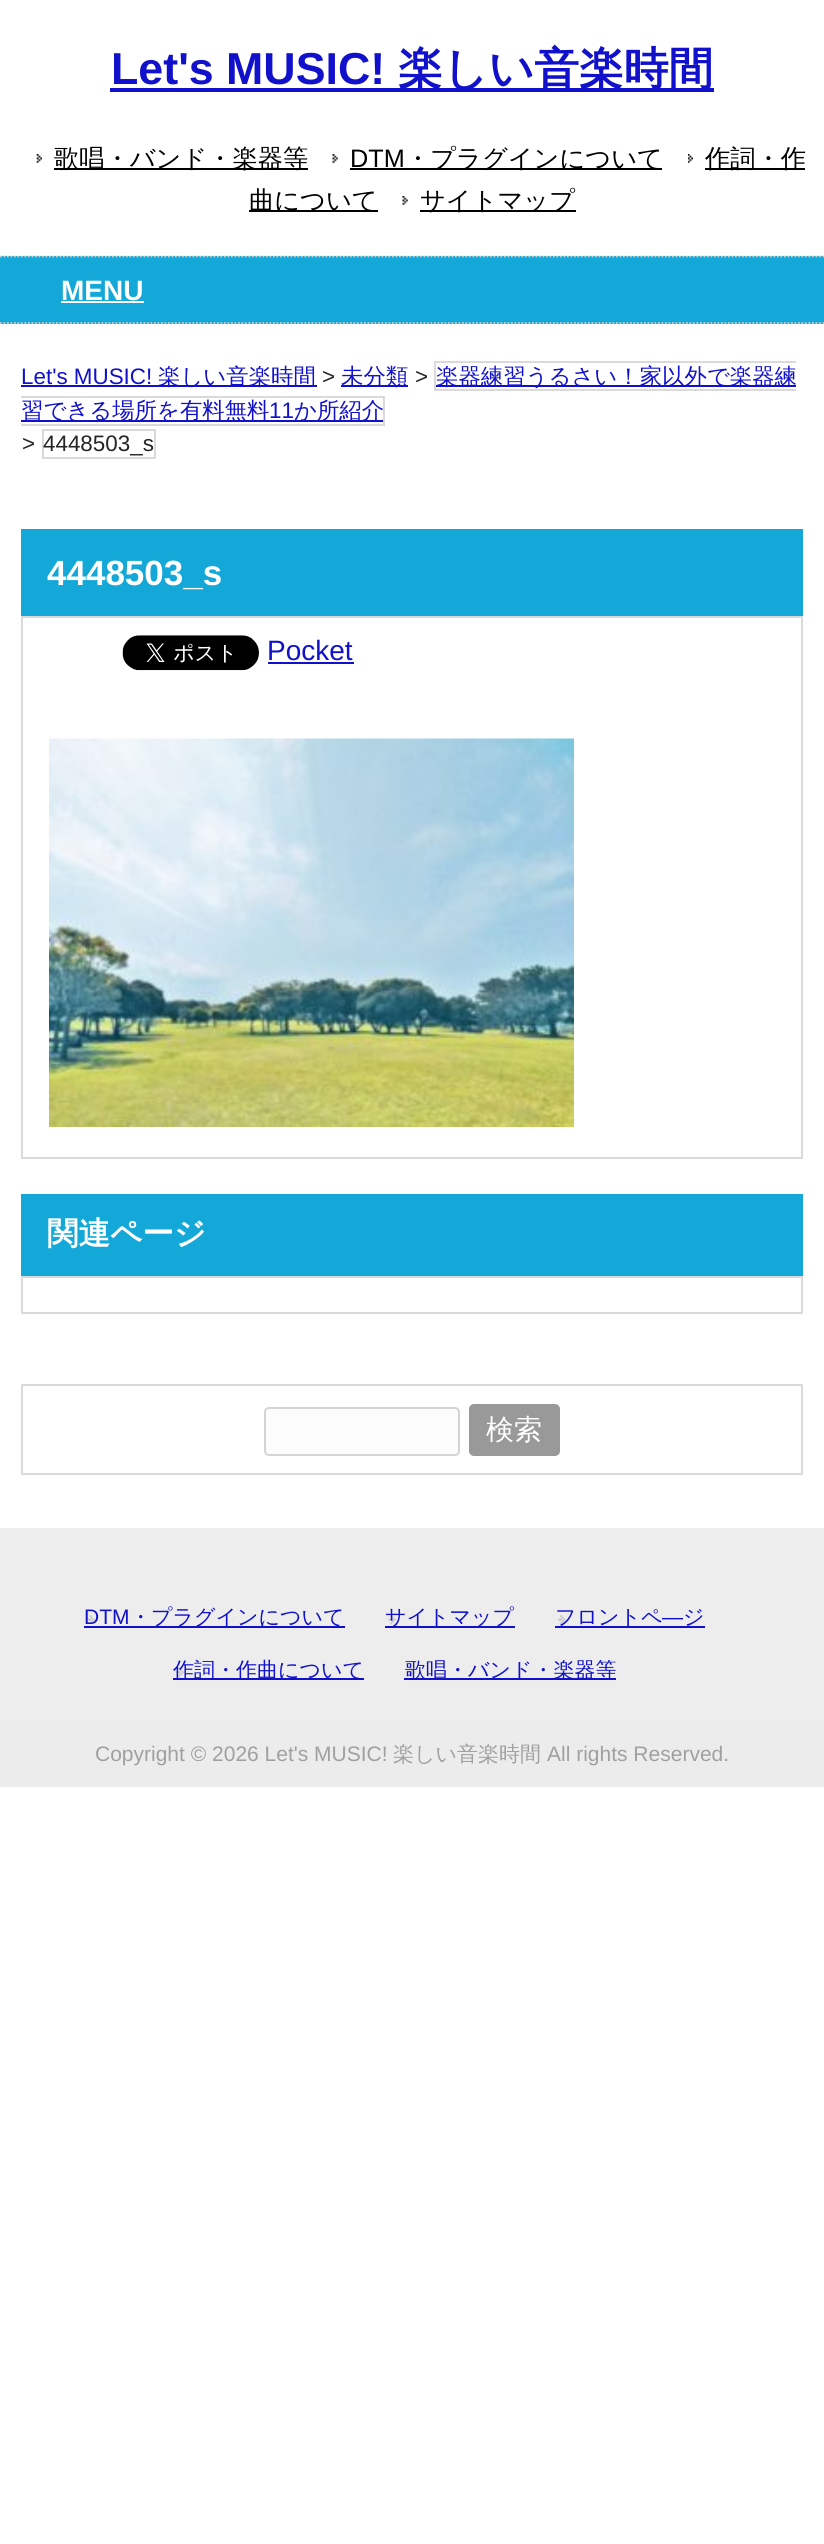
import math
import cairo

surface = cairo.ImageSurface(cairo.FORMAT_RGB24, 824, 2544)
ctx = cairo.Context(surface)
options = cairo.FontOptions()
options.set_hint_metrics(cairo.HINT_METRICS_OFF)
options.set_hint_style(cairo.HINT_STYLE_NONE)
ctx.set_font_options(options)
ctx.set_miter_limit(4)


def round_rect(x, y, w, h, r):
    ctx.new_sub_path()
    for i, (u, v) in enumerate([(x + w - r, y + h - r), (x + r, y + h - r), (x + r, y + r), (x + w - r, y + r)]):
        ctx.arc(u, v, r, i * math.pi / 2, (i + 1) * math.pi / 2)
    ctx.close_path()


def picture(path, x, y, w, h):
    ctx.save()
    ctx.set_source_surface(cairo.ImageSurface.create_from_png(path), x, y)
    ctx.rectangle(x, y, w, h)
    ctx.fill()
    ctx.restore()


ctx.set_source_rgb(1, 1, 1)
ctx.paint()
ctx.select_font_face("Liberation Sans", cairo.FONT_SLANT_NORMAL, cairo.FONT_WEIGHT_BOLD)
ctx.set_font_size(44.75)
ctx.set_source_rgb(0.067, 0.067, 0.8)
ctx.move_to(111, 84)
ctx.show_text("Let's MUSIC!")
ctx.rectangle(110, 88, 604, 4)
ctx.fill()
ctx.select_font_face("WenQuanYi Zen Hei", cairo.FONT_SLANT_NORMAL, cairo.FONT_WEIGHT_BOLD)
ctx.move_to(398, 84)
ctx.show_text("楽しい音楽時間")
picture("img1.png", 36, 154, 6, 9)
ctx.set_source_rgb(0, 0, 0)
ctx.rectangle(54, 168, 254, 2)
ctx.fill()
ctx.select_font_face("WenQuanYi Zen Hei Medium")
ctx.set_font_size(25.25)
ctx.move_to(54, 167)
ctx.show_text("歌唱・バンド・楽器等")
picture("img2.png", 332, 154, 6, 9)
ctx.select_font_face("Liberation Sans")
ctx.move_to(350, 167)
ctx.show_text("DTM")
ctx.rectangle(350, 168, 312, 2)
ctx.fill()
ctx.select_font_face("WenQuanYi Zen Hei Medium")
ctx.move_to(405, 167)
ctx.show_text("・プラグインについて")
picture("img3.png", 688, 154, 5, 9)
ctx.rectangle(705, 168, 100, 2)
ctx.fill()
ctx.move_to(705, 167)
ctx.show_text("作詞・作")
ctx.rectangle(249, 210, 129, 2)
ctx.fill()
ctx.move_to(249, 209)
ctx.show_text("曲について")
picture("img2.png", 402, 196, 6, 9)
ctx.rectangle(420, 210, 156, 2)
ctx.fill()
ctx.move_to(420, 209)
ctx.show_text("サイトマップ")
ctx.set_source_rgb(0.078, 0.659, 0.847)
ctx.rectangle(0, 256, 824, 68)
ctx.fill()
ctx.new_path()
ctx.move_to(0, 256.5)
ctx.line_to(824, 256.5)
ctx.set_source_rgb(0.8, 0.8, 0.8)
ctx.set_line_width(1.8)
ctx.set_dash([1.75, 1.75])
ctx.stroke()
ctx.new_path()
ctx.move_to(0, 323)
ctx.line_to(824, 323)
ctx.stroke()
ctx.select_font_face("Liberation Sans", cairo.FONT_SLANT_NORMAL, cairo.FONT_WEIGHT_BOLD)
ctx.set_font_size(28)
ctx.set_source_rgb(1, 1, 1)
ctx.move_to(61, 300)
ctx.show_text("MENU")
ctx.rectangle(61, 301, 83, 2)
ctx.fill()
ctx.select_font_face("Liberation Sans")
ctx.set_font_size(22.4)
ctx.set_source_rgb(0.067, 0.067, 0.8)
ctx.move_to(21, 384)
ctx.show_text("Let's MUSIC!")
ctx.rectangle(21, 385, 296, 2)
ctx.fill()
ctx.select_font_face("WenQuanYi Zen Hei Medium")
ctx.move_to(158, 384)
ctx.show_text("楽しい音楽時間")
ctx.select_font_face("Liberation Sans")
ctx.set_source_rgb(0.145, 0.145, 0.145)
ctx.move_to(322, 384)
ctx.show_text(">")
ctx.set_source_rgb(0.067, 0.067, 0.8)
ctx.rectangle(341, 385, 67, 2)
ctx.fill()
ctx.select_font_face("WenQuanYi Zen Hei Medium")
ctx.move_to(341, 384)
ctx.show_text("未分類")
ctx.select_font_face("Liberation Sans")
ctx.set_source_rgb(0.145, 0.145, 0.145)
ctx.move_to(415, 384)
ctx.show_text(">")
ctx.set_source_rgb(0.067, 0.067, 0.8)
ctx.rectangle(436, 385, 360, 2)
ctx.fill()
ctx.select_font_face("WenQuanYi Zen Hei Medium")
ctx.move_to(436, 384)
ctx.show_text("楽器練習うるさい！家以外で楽器練")
ctx.set_source_rgb(0.855, 0.855, 0.855)
ctx.rectangle(434, 361, 362, 2)
ctx.fill()
ctx.rectangle(434, 389, 362, 2)
ctx.fill()
ctx.rectangle(434, 361, 2, 29)
ctx.fill()
ctx.set_source_rgb(0.067, 0.067, 0.8)
ctx.rectangle(21, 420, 362, 2)
ctx.fill()
ctx.move_to(21, 418)
ctx.show_text("習できる場所を有料無料")
ctx.set_source_rgb(0.855, 0.855, 0.855)
ctx.rectangle(21, 396, 364, 2)
ctx.fill()
ctx.rectangle(383, 396, 2, 29)
ctx.fill()
ctx.rectangle(21, 424, 364, 2)
ctx.fill()
ctx.select_font_face("Liberation Sans")
ctx.set_source_rgb(0.067, 0.067, 0.8)
ctx.move_to(269, 418)
ctx.show_text("11")
ctx.select_font_face("WenQuanYi Zen Hei Medium")
ctx.move_to(294, 418)
ctx.show_text("か所紹介")
ctx.select_font_face("Liberation Sans")
ctx.set_source_rgb(0.145, 0.145, 0.145)
ctx.move_to(22, 451)
ctx.show_text(">")
ctx.rectangle(43, 430, 112, 28)
ctx.set_source_rgb(0.855, 0.855, 0.855)
ctx.set_line_width(2)
ctx.set_dash([])
ctx.stroke()
ctx.set_source_rgb(0.145, 0.145, 0.145)
ctx.move_to(43, 451)
ctx.show_text("4448503_s")
ctx.set_source_rgb(0.078, 0.659, 0.847)
ctx.rectangle(21, 529, 782, 87)
ctx.fill()
ctx.select_font_face("Liberation Sans", cairo.FONT_SLANT_NORMAL, cairo.FONT_WEIGHT_BOLD)
ctx.set_font_size(35)
ctx.set_source_rgb(1, 1, 1)
ctx.move_to(47, 585)
ctx.show_text("4448503_s")
ctx.rectangle(22, 617, 780, 541)
ctx.set_source_rgb(0.855, 0.855, 0.855)
ctx.stroke()
picture("img4.png", 122, 635, 137, 36)
ctx.select_font_face("Liberation Sans")
ctx.set_font_size(28)
ctx.set_source_rgb(0.067, 0.067, 0.8)
ctx.move_to(267, 660)
ctx.show_text("Pocket")
ctx.rectangle(268, 662, 86, 2)
ctx.fill()
picture("img5.png", 49, 738, 525, 389)
ctx.set_source_rgb(0.078, 0.659, 0.847)
ctx.rectangle(21, 1194, 782, 82)
ctx.fill()
ctx.select_font_face("WenQuanYi Zen Hei", cairo.FONT_SLANT_NORMAL, cairo.FONT_WEIGHT_BOLD)
ctx.set_font_size(31.5)
ctx.set_source_rgb(1, 1, 1)
ctx.move_to(47, 1244)
ctx.show_text("関連ページ")
ctx.rectangle(22, 1277, 780, 36)
ctx.set_source_rgb(0.855, 0.855, 0.855)
ctx.stroke()
ctx.rectangle(22, 1385, 780, 89)
ctx.stroke()
ctx.set_source_rgb(0.988, 0.988, 0.988)
round_rect(265, 1408, 194, 47, 4)
ctx.fill_preserve()
ctx.set_source_rgb(0.831, 0.831, 0.843)
ctx.stroke()
ctx.set_source_rgb(0.6, 0.6, 0.6)
round_rect(469, 1404, 91, 52, 5)
ctx.fill()
ctx.select_font_face("WenQuanYi Zen Hei Medium")
ctx.set_font_size(28)
ctx.set_source_rgb(1, 1, 1)
ctx.move_to(486, 1439)
ctx.show_text("検索")
ctx.set_source_rgb(0.929, 0.929, 0.929)
ctx.rectangle(0, 1528, 824, 192)
ctx.fill()
picture("img6.png", 87, 1615, 8, 10)
ctx.select_font_face("Liberation Sans")
ctx.set_font_size(21)
ctx.set_source_rgb(0.067, 0.067, 0.8)
ctx.move_to(84, 1624)
ctx.show_text("DTM")
ctx.rectangle(84, 1626, 261, 2)
ctx.fill()
ctx.select_font_face("WenQuanYi Zen Hei Medium")
ctx.move_to(130, 1624)
ctx.show_text("・プラグインについて")
picture("img6.png", 388, 1615, 8, 10)
ctx.rectangle(385, 1626, 130, 2)
ctx.fill()
ctx.move_to(385, 1624)
ctx.show_text("サイトマップ")
picture("img7.png", 558, 1615, 8, 10)
ctx.rectangle(555, 1626, 150, 2)
ctx.fill()
ctx.move_to(555, 1624)
ctx.show_text("フロントペ")
ctx.select_font_face("Liberation Sans")
ctx.move_to(662, 1624)
ctx.show_text("―")
ctx.select_font_face("WenQuanYi Zen Hei Medium")
ctx.move_to(683, 1624)
ctx.show_text("ジ")
picture("img8.png", 176, 1667, 9, 10)
ctx.rectangle(173, 1678, 191, 2)
ctx.fill()
ctx.move_to(173, 1677)
ctx.show_text("作詞・作曲について")
picture("img9.png", 407, 1667, 9, 10)
ctx.rectangle(404, 1678, 212, 2)
ctx.fill()
ctx.move_to(405, 1677)
ctx.show_text("歌唱・バンド・楽器等")
ctx.set_source_rgb(0.922, 0.922, 0.922)
ctx.rectangle(0, 1720, 824, 67)
ctx.fill()
ctx.select_font_face("Liberation Sans")
ctx.set_source_rgb(0.627, 0.627, 0.627)
ctx.move_to(95, 1761)
ctx.show_text("Copyright © 2026 Let's MUSIC!")
ctx.select_font_face("WenQuanYi Zen Hei Medium")
ctx.move_to(393, 1761)
ctx.show_text("楽しい音楽時間")
ctx.select_font_face("Liberation Sans")
ctx.move_to(547, 1761)
ctx.show_text("All rights Reserved.")
surface.write_to_png("page.png")
